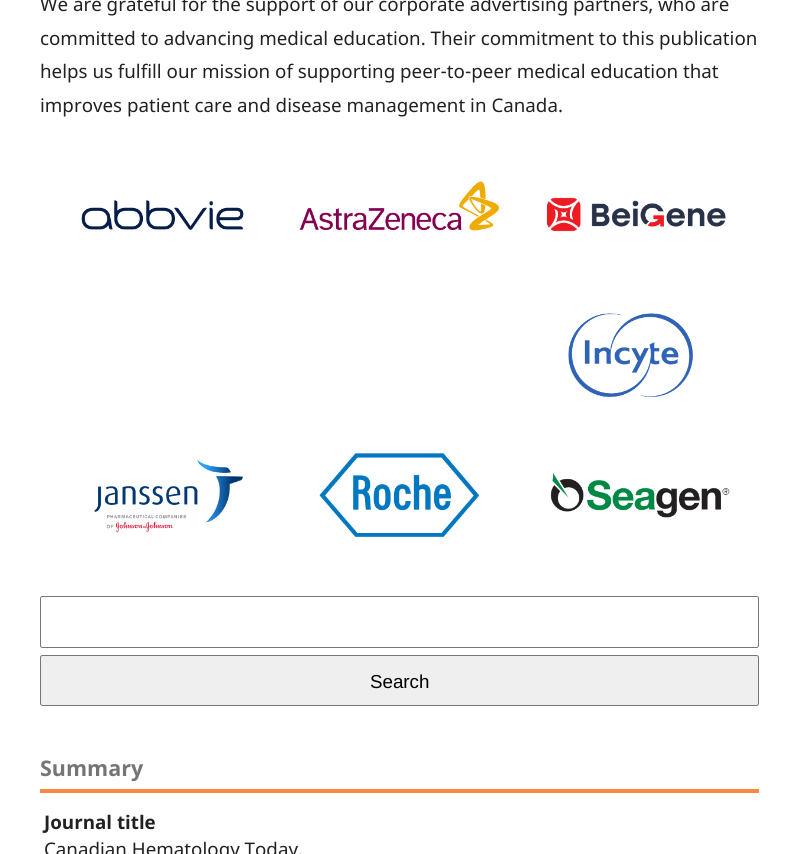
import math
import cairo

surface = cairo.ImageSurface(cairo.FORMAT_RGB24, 798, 854)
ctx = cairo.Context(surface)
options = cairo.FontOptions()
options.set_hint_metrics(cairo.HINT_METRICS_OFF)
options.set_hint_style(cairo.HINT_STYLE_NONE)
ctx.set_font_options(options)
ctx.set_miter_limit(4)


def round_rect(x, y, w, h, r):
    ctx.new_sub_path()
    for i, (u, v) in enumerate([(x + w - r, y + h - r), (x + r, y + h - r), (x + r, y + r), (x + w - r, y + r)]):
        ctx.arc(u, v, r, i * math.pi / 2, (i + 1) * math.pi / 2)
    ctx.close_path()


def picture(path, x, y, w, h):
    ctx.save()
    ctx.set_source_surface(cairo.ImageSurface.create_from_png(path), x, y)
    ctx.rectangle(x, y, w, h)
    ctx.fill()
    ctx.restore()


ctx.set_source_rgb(1, 1, 1)
ctx.paint()
ctx.select_font_face("Noto Sans")
ctx.set_font_size(18.75)
ctx.set_source_rgb(0.129, 0.129, 0.129)
ctx.move_to(40, 11)
ctx.show_text("We are grateful for the support of our corporate advertising partners, who are")
ctx.move_to(40, 45)
ctx.show_text("committed to advancing medical education. Their commitment to this publication")
ctx.move_to(40, 78)
ctx.show_text("helps us fulfill our mission of supporting peer-to-peer medical education that")
ctx.move_to(40, 112)
ctx.show_text("improves patient care and disease management in Canada.")
picture("img1.png", 81, 200, 163, 30)
picture("img2.png", 299, 181, 200, 50)
picture("img3.png", 546, 197, 180, 35)
picture("img4.png", 568, 313, 125, 84)
picture("img5.png", 94, 460, 149, 73)
picture("img6.png", 319, 453, 161, 84)
picture("img7.png", 550, 473, 180, 45)
round_rect(40.5, 596.5, 718, 51, 2)
ctx.set_source_rgb(0.463, 0.463, 0.463)
ctx.set_line_width(1)
ctx.stroke()
ctx.set_source_rgb(0.937, 0.937, 0.937)
round_rect(40.5, 655.5, 718, 50, 2)
ctx.fill_preserve()
ctx.set_source_rgb(0.463, 0.463, 0.463)
ctx.stroke()
ctx.select_font_face("Liberation Sans")
ctx.set_source_rgb(0, 0, 0)
ctx.move_to(370, 688)
ctx.show_text("Search")
ctx.set_source_rgb(1, 0.537, 0.251)
ctx.rectangle(40, 789, 719, 4)
ctx.fill()
ctx.select_font_face("Noto Sans", cairo.FONT_SLANT_NORMAL, cairo.FONT_WEIGHT_BOLD)
ctx.set_font_size(21.5)
ctx.set_source_rgb(0.459, 0.459, 0.459)
ctx.move_to(40, 776)
ctx.show_text("Summary")
ctx.set_font_size(18.75)
ctx.set_source_rgb(0.129, 0.129, 0.129)
ctx.move_to(44, 829)
ctx.show_text("Journal title")
ctx.select_font_face("Noto Sans")
ctx.move_to(44, 856)
ctx.show_text("Canadian Hematology Today.")
surface.write_to_png("page.png")
